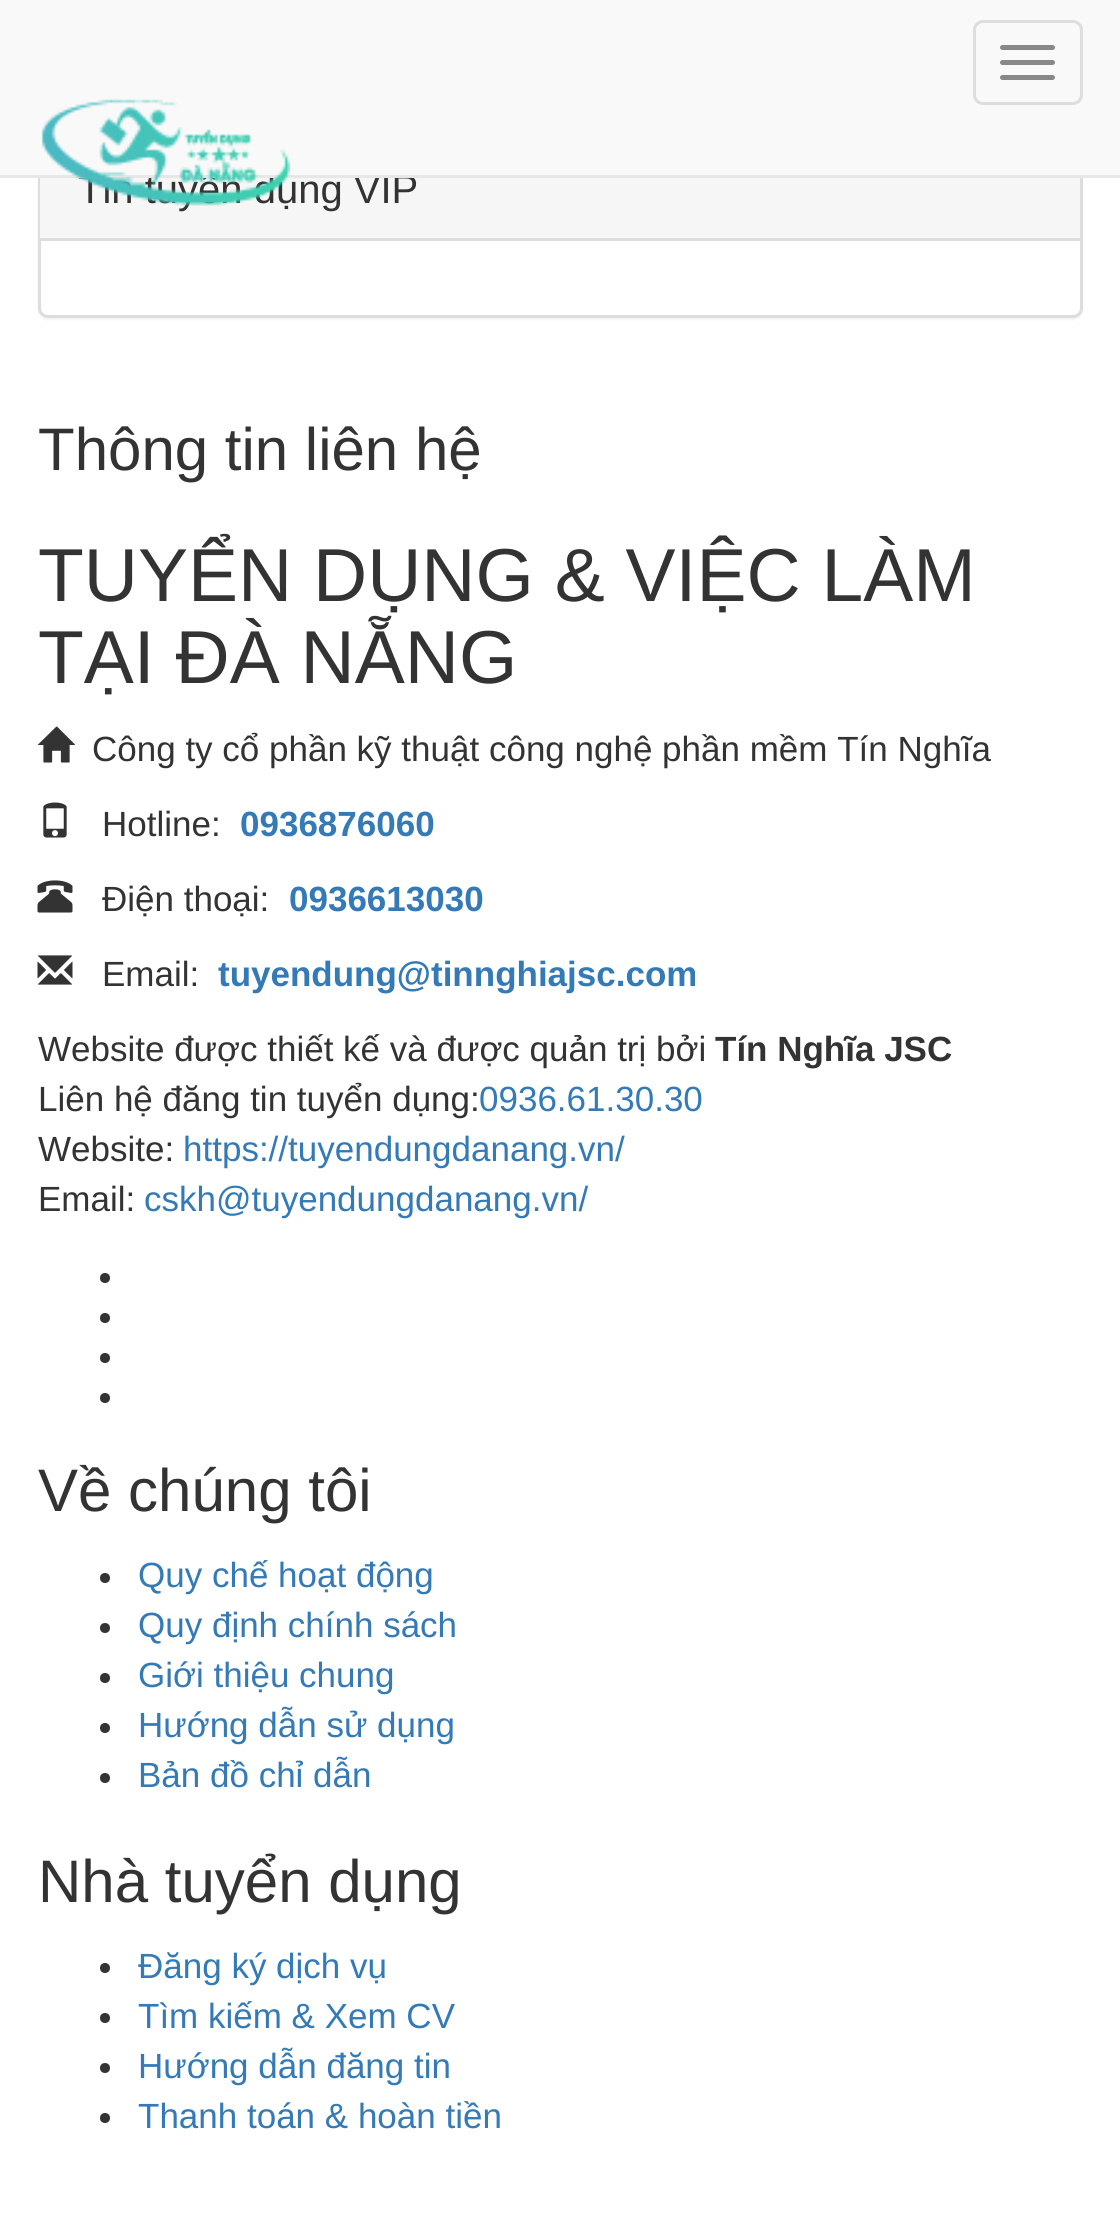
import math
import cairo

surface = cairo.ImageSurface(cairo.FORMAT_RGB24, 1120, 2236)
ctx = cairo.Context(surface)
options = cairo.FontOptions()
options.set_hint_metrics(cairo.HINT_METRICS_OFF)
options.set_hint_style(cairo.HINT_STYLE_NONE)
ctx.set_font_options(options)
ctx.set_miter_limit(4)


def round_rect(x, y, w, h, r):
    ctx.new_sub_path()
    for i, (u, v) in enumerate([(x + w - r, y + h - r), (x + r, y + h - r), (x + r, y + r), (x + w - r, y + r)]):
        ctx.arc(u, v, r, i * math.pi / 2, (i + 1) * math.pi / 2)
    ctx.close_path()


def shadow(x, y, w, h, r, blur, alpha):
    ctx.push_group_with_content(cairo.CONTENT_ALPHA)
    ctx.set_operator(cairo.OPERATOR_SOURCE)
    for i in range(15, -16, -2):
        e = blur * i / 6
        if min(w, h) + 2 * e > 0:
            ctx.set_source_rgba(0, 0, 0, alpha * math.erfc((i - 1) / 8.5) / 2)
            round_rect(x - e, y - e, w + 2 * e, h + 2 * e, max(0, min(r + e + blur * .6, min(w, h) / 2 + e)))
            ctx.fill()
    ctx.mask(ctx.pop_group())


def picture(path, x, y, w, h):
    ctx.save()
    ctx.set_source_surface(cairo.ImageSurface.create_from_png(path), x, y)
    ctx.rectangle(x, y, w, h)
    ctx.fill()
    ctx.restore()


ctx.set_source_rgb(1, 1, 1)
ctx.paint()
ctx.set_source_rgb(0, 0, 0)
shadow(38, 143, 1045, 177, 10, 1, 0.05)
ctx.set_source_rgb(1, 1, 1)
round_rect(39.5, 141.5, 1042, 175, 8.5)
ctx.fill_preserve()
ctx.set_source_rgb(0.867, 0.867, 0.867)
ctx.set_line_width(3)
ctx.stroke()
ctx.set_source_rgb(0.961, 0.961, 0.961)
ctx.rectangle(40, 178, 1040, 60)
ctx.fill()
ctx.select_font_face("Liberation Sans")
ctx.set_font_size(40)
ctx.set_source_rgb(0.2, 0.2, 0.2)
ctx.move_to(78, 203)
ctx.show_text("Tin tuyển dụng VIP")
ctx.set_source_rgb(0.973, 0.973, 0.973)
ctx.rectangle(0, 0, 1120, 175)
ctx.fill()
ctx.set_source_rgb(0.906, 0.906, 0.906)
ctx.rectangle(0, 175, 1120, 3)
ctx.fill()
round_rect(974.5, 21.5, 107, 82, 8.5)
ctx.set_source_rgb(0.867, 0.867, 0.867)
ctx.stroke()
ctx.set_source_rgb(0.533, 0.533, 0.533)
round_rect(1000, 45, 55, 5, 2.5)
ctx.fill()
round_rect(1000, 60, 55, 5, 2.5)
ctx.fill()
round_rect(1000, 75, 55, 5, 2.5)
ctx.fill()
picture("img1.png", 41, 99, 249, 107)
ctx.set_source_rgb(0.867, 0.867, 0.867)
ctx.rectangle(40, 238, 1040, 3)
ctx.fill()
ctx.set_font_size(60)
ctx.set_source_rgb(0.2, 0.2, 0.2)
ctx.move_to(38, 470)
ctx.show_text("Thông tin liên hệ")
ctx.set_font_size(75)
ctx.move_to(38, 601)
ctx.show_text("TUYỂN DỤNG & VIỆC LÀM")
ctx.move_to(38, 683)
ctx.show_text("TẠI ĐÀ NẴNG")
picture("img2.png", 38, 726, 37, 37)
ctx.set_font_size(35)
ctx.move_to(92, 761)
ctx.show_text("Công ty cổ phần kỹ thuật công nghệ phần mềm Tín Nghĩa")
picture("img3.png", 43, 802, 24, 36)
ctx.move_to(102, 836)
ctx.show_text("Hotline:")
ctx.select_font_face("Liberation Sans", cairo.FONT_SLANT_NORMAL, cairo.FONT_WEIGHT_BOLD)
ctx.set_source_rgb(0.2, 0.478, 0.718)
ctx.move_to(240, 836)
ctx.show_text("0936876060")
picture("img4.png", 37, 880, 36, 33)
ctx.select_font_face("Liberation Sans")
ctx.set_source_rgb(0.2, 0.2, 0.2)
ctx.move_to(102, 911)
ctx.show_text("Điện thoại:")
ctx.select_font_face("Liberation Sans", cairo.FONT_SLANT_NORMAL, cairo.FONT_WEIGHT_BOLD)
ctx.set_source_rgb(0.2, 0.478, 0.718)
ctx.move_to(289, 911)
ctx.show_text("0936613030")
picture("img5.png", 37, 955, 36, 30)
ctx.select_font_face("Liberation Sans")
ctx.set_source_rgb(0.2, 0.2, 0.2)
ctx.move_to(102, 986)
ctx.show_text("Email:")
ctx.select_font_face("Liberation Sans", cairo.FONT_SLANT_NORMAL, cairo.FONT_WEIGHT_BOLD)
ctx.set_source_rgb(0.2, 0.478, 0.718)
ctx.move_to(218, 986)
ctx.show_text("tuyendung@tinnghiajsc.com")
ctx.select_font_face("Liberation Sans")
ctx.set_source_rgb(0.2, 0.2, 0.2)
ctx.move_to(38, 1061)
ctx.show_text("Website được thiết kế và được quản trị bởi")
ctx.select_font_face("Liberation Sans", cairo.FONT_SLANT_NORMAL, cairo.FONT_WEIGHT_BOLD)
ctx.move_to(715, 1061)
ctx.show_text("Tín Nghĩa JSC")
ctx.select_font_face("Liberation Sans")
ctx.move_to(38, 1111)
ctx.show_text("Liên hệ đăng tin tuyển dụng:")
ctx.set_source_rgb(0.2, 0.478, 0.718)
ctx.move_to(479, 1111)
ctx.show_text("0936.61.30.30")
ctx.set_source_rgb(0.2, 0.2, 0.2)
ctx.move_to(38, 1161)
ctx.show_text("Website:")
ctx.set_source_rgb(0.2, 0.478, 0.718)
ctx.move_to(183, 1161)
ctx.show_text("https://tuyendungdanang.vn/")
ctx.set_source_rgb(0.2, 0.2, 0.2)
ctx.move_to(38, 1211)
ctx.show_text("Email:")
ctx.set_source_rgb(0.2, 0.478, 0.718)
ctx.move_to(144, 1211)
ctx.show_text("cskh@tuyendungdanang.vn/")
ctx.set_source_rgb(0.2, 0.2, 0.2)
ctx.new_path()
ctx.arc(105, 1278, 5, 0, 2 * math.pi)
ctx.fill()
ctx.arc(105, 1318, 5, 0, 2 * math.pi)
ctx.fill()
ctx.arc(105, 1358, 5, 0, 2 * math.pi)
ctx.fill()
ctx.arc(105, 1398, 5, 0, 2 * math.pi)
ctx.fill()
ctx.set_font_size(60)
ctx.move_to(38, 1511)
ctx.show_text("Về chúng tôi")
ctx.new_path()
ctx.arc(105, 1578, 5, 0, 2 * math.pi)
ctx.fill()
ctx.set_font_size(35)
ctx.set_source_rgb(0.2, 0.478, 0.718)
ctx.move_to(138, 1587)
ctx.show_text("Quy chế hoạt động")
ctx.set_source_rgb(0.2, 0.2, 0.2)
ctx.new_path()
ctx.arc(105, 1628, 5, 0, 2 * math.pi)
ctx.fill()
ctx.set_source_rgb(0.2, 0.478, 0.718)
ctx.move_to(138, 1637)
ctx.show_text("Quy định chính sách")
ctx.set_source_rgb(0.2, 0.2, 0.2)
ctx.new_path()
ctx.arc(105, 1678, 5, 0, 2 * math.pi)
ctx.fill()
ctx.set_source_rgb(0.2, 0.478, 0.718)
ctx.move_to(138, 1687)
ctx.show_text("Giới thiệu chung")
ctx.set_source_rgb(0.2, 0.2, 0.2)
ctx.new_path()
ctx.arc(105, 1728, 5, 0, 2 * math.pi)
ctx.fill()
ctx.set_source_rgb(0.2, 0.478, 0.718)
ctx.move_to(138, 1737)
ctx.show_text("Hướng dẫn sử dụng")
ctx.set_source_rgb(0.2, 0.2, 0.2)
ctx.new_path()
ctx.arc(105, 1778, 5, 0, 2 * math.pi)
ctx.fill()
ctx.set_source_rgb(0.2, 0.478, 0.718)
ctx.move_to(138, 1787)
ctx.show_text("Bản đồ chỉ dẫn")
ctx.set_font_size(60)
ctx.set_source_rgb(0.2, 0.2, 0.2)
ctx.move_to(38, 1902)
ctx.show_text("Nhà tuyển dụng")
ctx.new_path()
ctx.arc(105, 1968, 5, 0, 2 * math.pi)
ctx.fill()
ctx.set_font_size(35)
ctx.set_source_rgb(0.2, 0.478, 0.718)
ctx.move_to(138, 1978)
ctx.show_text("Đăng ký dịch vụ")
ctx.set_source_rgb(0.2, 0.2, 0.2)
ctx.new_path()
ctx.arc(105, 2018, 5, 0, 2 * math.pi)
ctx.fill()
ctx.set_source_rgb(0.2, 0.478, 0.718)
ctx.move_to(138, 2028)
ctx.show_text("Tìm kiếm & Xem CV")
ctx.set_source_rgb(0.2, 0.2, 0.2)
ctx.new_path()
ctx.arc(105, 2068, 5, 0, 2 * math.pi)
ctx.fill()
ctx.set_source_rgb(0.2, 0.478, 0.718)
ctx.move_to(138, 2078)
ctx.show_text("Hướng dẫn đăng tin")
ctx.set_source_rgb(0.2, 0.2, 0.2)
ctx.new_path()
ctx.arc(105, 2118, 5, 0, 2 * math.pi)
ctx.fill()
ctx.set_source_rgb(0.2, 0.478, 0.718)
ctx.move_to(138, 2128)
ctx.show_text("Thanh toán & hoàn tiền")
surface.write_to_png("page.png")
